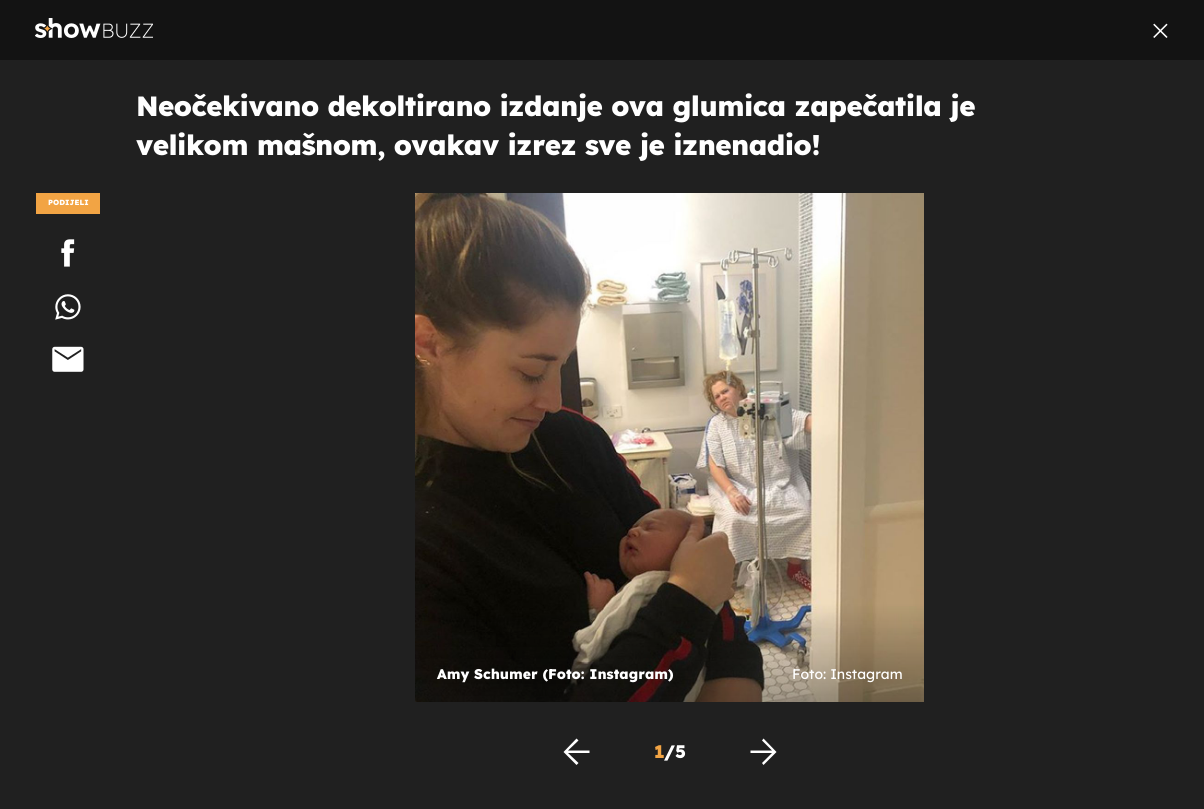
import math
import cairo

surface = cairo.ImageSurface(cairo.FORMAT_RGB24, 1204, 809)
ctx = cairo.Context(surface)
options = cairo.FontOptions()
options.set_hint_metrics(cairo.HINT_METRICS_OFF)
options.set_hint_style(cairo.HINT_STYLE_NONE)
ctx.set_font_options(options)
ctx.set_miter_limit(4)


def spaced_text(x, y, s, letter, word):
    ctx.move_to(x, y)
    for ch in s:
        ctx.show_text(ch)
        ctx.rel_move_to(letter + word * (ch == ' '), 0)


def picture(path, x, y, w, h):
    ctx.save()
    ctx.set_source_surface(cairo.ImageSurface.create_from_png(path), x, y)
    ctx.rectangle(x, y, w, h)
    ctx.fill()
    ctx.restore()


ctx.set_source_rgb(0.125, 0.125, 0.125)
ctx.paint()
ctx.set_source_rgb(0.078, 0.078, 0.078)
ctx.rectangle(0, 0, 1204, 60)
ctx.fill()
picture("img1.png", 35, 18, 118, 20)
picture("img2.png", 1153, 23, 15, 15)
ctx.select_font_face("Lexend ExtraBold")
ctx.set_font_size(27.85)
ctx.set_source_rgb(1, 1, 1)
spaced_text(136, 116, "Neočekivano dekoltirano izdanje ova glumica zapečatila je", -0.55, 0)
spaced_text(136, 155, "velikom mašnom, ovakav izrez sve je iznenadio!", -0.55, 0)
ctx.set_source_rgb(0.949, 0.643, 0.267)
ctx.rectangle(36, 193, 64, 21)
ctx.fill()
ctx.set_font_size(7.5)
ctx.set_source_rgb(1, 1, 1)
ctx.move_to(48, 205)
ctx.show_text("PODIJELI")
picture("img3.png", 61, 239, 14, 28)
picture("img4.png", 55, 294, 26, 26)
picture("img5.png", 52, 346, 32, 26)
picture("img6.png", 415, 193, 509, 509)
ctx.set_font_size(14)
ctx.move_to(437, 679)
ctx.show_text("Amy Schumer (Foto: Instagram)")
ctx.select_font_face("Lexend")
ctx.move_to(792, 679)
ctx.show_text("Foto: Instagram")
ctx.new_path()
ctx.move_to(576.5, 765)
ctx.line_to(578.5, 763)
ctx.line_to(568, 753)
ctx.line_to(589.5, 753)
ctx.line_to(589.5, 750.5)
ctx.line_to(568, 750.5)
ctx.line_to(578.5, 740.5)
ctx.line_to(576.5, 738.5)
ctx.line_to(563.5, 752)
ctx.close_path()
ctx.fill()
ctx.select_font_face("Lexend ExtraBold")
ctx.set_font_size(18)
ctx.set_source_rgb(0.949, 0.643, 0.267)
ctx.move_to(654, 758)
ctx.show_text("1")
ctx.set_source_rgb(1, 1, 1)
ctx.move_to(664, 758)
ctx.show_text("/5")
ctx.new_path()
ctx.move_to(763.5, 765)
ctx.line_to(762, 763)
ctx.line_to(772, 753)
ctx.line_to(750.5, 753)
ctx.line_to(750.5, 750.5)
ctx.line_to(772, 750.5)
ctx.line_to(762, 740.5)
ctx.line_to(763.5, 738.5)
ctx.line_to(776.5, 752)
ctx.close_path()
ctx.fill()
surface.write_to_png("page.png")
